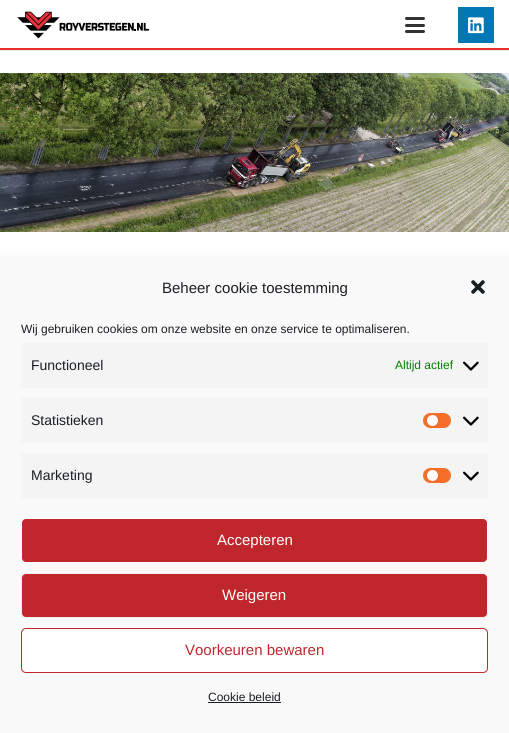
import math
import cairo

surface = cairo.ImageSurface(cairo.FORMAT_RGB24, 509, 733)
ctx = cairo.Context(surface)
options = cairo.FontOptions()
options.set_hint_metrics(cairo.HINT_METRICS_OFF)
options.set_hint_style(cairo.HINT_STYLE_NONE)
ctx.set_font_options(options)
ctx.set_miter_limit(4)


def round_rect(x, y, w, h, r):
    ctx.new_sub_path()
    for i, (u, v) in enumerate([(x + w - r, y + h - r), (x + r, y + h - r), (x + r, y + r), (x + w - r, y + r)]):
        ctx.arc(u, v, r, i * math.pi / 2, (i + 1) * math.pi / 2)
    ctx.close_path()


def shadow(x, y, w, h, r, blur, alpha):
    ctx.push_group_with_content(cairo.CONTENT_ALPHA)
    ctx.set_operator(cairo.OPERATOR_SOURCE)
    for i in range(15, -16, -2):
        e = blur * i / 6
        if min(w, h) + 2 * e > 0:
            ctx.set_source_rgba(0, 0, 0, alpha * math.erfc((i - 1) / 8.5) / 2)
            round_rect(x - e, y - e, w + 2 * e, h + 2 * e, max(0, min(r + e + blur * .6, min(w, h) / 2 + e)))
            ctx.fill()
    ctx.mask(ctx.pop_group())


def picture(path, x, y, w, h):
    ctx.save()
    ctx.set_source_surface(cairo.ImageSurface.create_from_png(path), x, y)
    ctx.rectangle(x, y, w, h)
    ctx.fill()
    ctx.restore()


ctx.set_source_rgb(1, 1, 1)
ctx.paint()
ctx.set_source_rgb(0.922, 0.922, 0.922)
ctx.rectangle(0, 50, 509, 1)
ctx.fill()
ctx.set_source_rgb(0.906, 0.188, 0.161)
ctx.rectangle(0, 48, 509, 2)
ctx.fill()
picture("img1.png", 17, 11, 132, 28)
ctx.set_source_rgb(0.192, 0.196, 0.196)
round_rect(405, 24, 20, 3, 1.5)
ctx.fill()
round_rect(405, 17, 20, 3, 1.5)
ctx.fill()
round_rect(405, 30, 20, 3, 1.5)
ctx.fill()
ctx.set_source_rgb(0, 0.467, 0.71)
ctx.rectangle(458, 7, 36, 36)
ctx.fill()
picture("img2.png", 468, 17, 16, 17)
picture("img3.png", 0, 73, 509, 159)
ctx.set_source_rgb(0, 0, 0)
shadow(0, 269, 509, 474, 0, 10, 0.19)
ctx.set_source_rgb(0.976, 0.976, 0.976)
ctx.rectangle(0, 260, 509, 473)
ctx.fill()
ctx.select_font_face("Liberation Sans")
ctx.set_font_size(15)
ctx.set_source_rgb(0.098, 0.118, 0.137)
ctx.move_to(162, 293)
ctx.show_text("Beheer cookie toestemming")
picture("img4.png", 471, 280, 14, 14)
ctx.set_font_size(12)
ctx.move_to(21, 333)
ctx.show_text("Wij gebruiken cookies om onze website en onze service te optimaliseren.")
ctx.set_source_rgb(0.957, 0.957, 0.957)
ctx.rectangle(21, 343, 467, 45)
ctx.fill()
ctx.set_font_size(14)
ctx.set_source_rgb(0.098, 0.118, 0.137)
ctx.move_to(31, 370)
ctx.show_text("Functioneel")
ctx.set_font_size(12)
ctx.set_source_rgb(0, 0.502, 0)
ctx.move_to(395, 369)
ctx.show_text("Altijd actief")
picture("img5.png", 463, 361, 16, 10)
ctx.set_source_rgb(0.957, 0.957, 0.957)
ctx.rectangle(21, 398, 467, 45)
ctx.fill()
ctx.set_font_size(14)
ctx.set_source_rgb(0.098, 0.118, 0.137)
ctx.move_to(31, 425)
ctx.show_text("Statistieken")
ctx.set_source_rgb(0.961, 0.431, 0.157)
round_rect(423, 413, 28, 15, 7.5)
ctx.fill()
ctx.set_source_rgb(1, 1, 1)
ctx.arc(432.5, 420.5, 5.5, 0, 2 * math.pi)
ctx.fill()
picture("img5.png", 463, 416, 16, 10)
ctx.set_source_rgb(0.957, 0.957, 0.957)
ctx.rectangle(21, 453, 467, 45)
ctx.fill()
ctx.set_source_rgb(0.098, 0.118, 0.137)
ctx.move_to(31, 480)
ctx.show_text("Marketing")
ctx.set_source_rgb(0.961, 0.431, 0.157)
round_rect(423, 468, 28, 15, 7.5)
ctx.fill()
ctx.set_source_rgb(1, 1, 1)
ctx.arc(432.5, 475.5, 5.5, 0, 2 * math.pi)
ctx.fill()
picture("img5.png", 463, 471, 16, 10)
ctx.set_source_rgb(0.753, 0.153, 0.173)
round_rect(21.5, 518.5, 466, 44, 4.5)
ctx.fill_preserve()
ctx.set_source_rgb(1, 1, 1)
ctx.set_line_width(1)
ctx.stroke()
ctx.set_font_size(15)
ctx.move_to(217, 545)
ctx.show_text("Accepteren")
ctx.set_source_rgb(0.753, 0.153, 0.173)
round_rect(21.5, 573.5, 466, 44, 4.5)
ctx.fill_preserve()
ctx.set_source_rgb(0.945, 0.945, 0.945)
ctx.stroke()
ctx.set_source_rgb(1, 1, 1)
ctx.move_to(222, 600)
ctx.show_text("Weigeren")
round_rect(21.5, 628.5, 466, 44, 4.5)
ctx.fill_preserve()
ctx.set_source_rgb(0.753, 0.153, 0.173)
ctx.stroke()
ctx.move_to(185, 655)
ctx.show_text("Voorkeuren bewaren")
ctx.set_font_size(12)
ctx.set_source_rgb(0.098, 0.118, 0.137)
ctx.move_to(208, 701)
ctx.show_text("Cookie beleid")
ctx.rectangle(208, 702, 73, 1)
ctx.fill()
surface.write_to_png("page.png")
